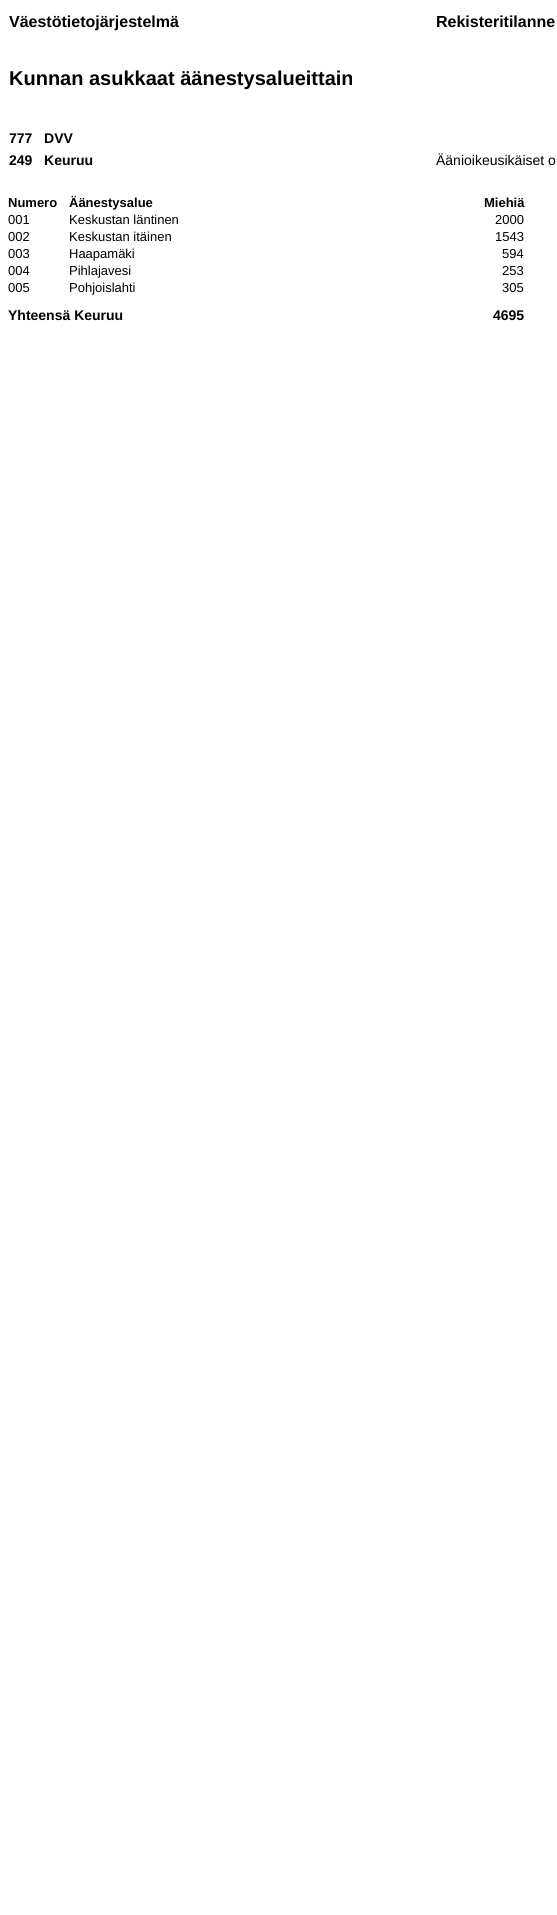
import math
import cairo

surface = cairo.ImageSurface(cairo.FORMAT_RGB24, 557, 1915)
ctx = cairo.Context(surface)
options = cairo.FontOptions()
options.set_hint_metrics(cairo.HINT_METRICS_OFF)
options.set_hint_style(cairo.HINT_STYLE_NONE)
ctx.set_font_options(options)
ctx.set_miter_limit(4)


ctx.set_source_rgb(1, 1, 1)
ctx.paint()
ctx.select_font_face("Liberation Sans", cairo.FONT_SLANT_NORMAL, cairo.FONT_WEIGHT_BOLD)
ctx.set_font_size(16)
ctx.set_source_rgb(0, 0, 0)
ctx.move_to(9, 27)
ctx.show_text("Väestötietojärjestelmä")
ctx.move_to(436, 27)
ctx.show_text("Rekisteritilanne")
ctx.set_font_size(20)
ctx.move_to(9, 85)
ctx.show_text("Kunnan asukkaat äänestysalueittain")
ctx.set_font_size(14)
ctx.move_to(9, 143)
ctx.show_text("777   DVV")
ctx.move_to(9, 165)
ctx.show_text("249   Keuruu")
ctx.select_font_face("Liberation Sans")
ctx.move_to(436, 165)
ctx.show_text("Äänioikeusikäiset o")
ctx.select_font_face("Liberation Sans", cairo.FONT_SLANT_NORMAL, cairo.FONT_WEIGHT_BOLD)
ctx.set_font_size(13)
ctx.move_to(8, 207)
ctx.show_text("Numero")
ctx.move_to(69, 207)
ctx.show_text("Äänestysalue")
ctx.move_to(484, 207)
ctx.show_text("Miehiä")
ctx.select_font_face("Liberation Sans")
ctx.move_to(8, 224)
ctx.show_text("001")
ctx.move_to(69, 224)
ctx.show_text("Keskustan läntinen")
ctx.move_to(495, 224)
ctx.show_text("2000")
ctx.move_to(8, 241)
ctx.show_text("002")
ctx.move_to(69, 241)
ctx.show_text("Keskustan itäinen")
ctx.move_to(495, 241)
ctx.show_text("1543")
ctx.move_to(8, 258)
ctx.show_text("003")
ctx.move_to(69, 258)
ctx.show_text("Haapamäki")
ctx.move_to(502, 258)
ctx.show_text("594")
ctx.move_to(8, 275)
ctx.show_text("004")
ctx.move_to(69, 275)
ctx.show_text("Pihlajavesi")
ctx.move_to(502, 275)
ctx.show_text("253")
ctx.move_to(8, 292)
ctx.show_text("005")
ctx.move_to(69, 292)
ctx.show_text("Pohjoislahti")
ctx.move_to(502, 292)
ctx.show_text("305")
ctx.select_font_face("Liberation Sans", cairo.FONT_SLANT_NORMAL, cairo.FONT_WEIGHT_BOLD)
ctx.set_font_size(14)
ctx.move_to(8, 320)
ctx.show_text("Yhteensä Keuruu")
ctx.move_to(493, 320)
ctx.show_text("4695")
surface.write_to_png("page.png")
